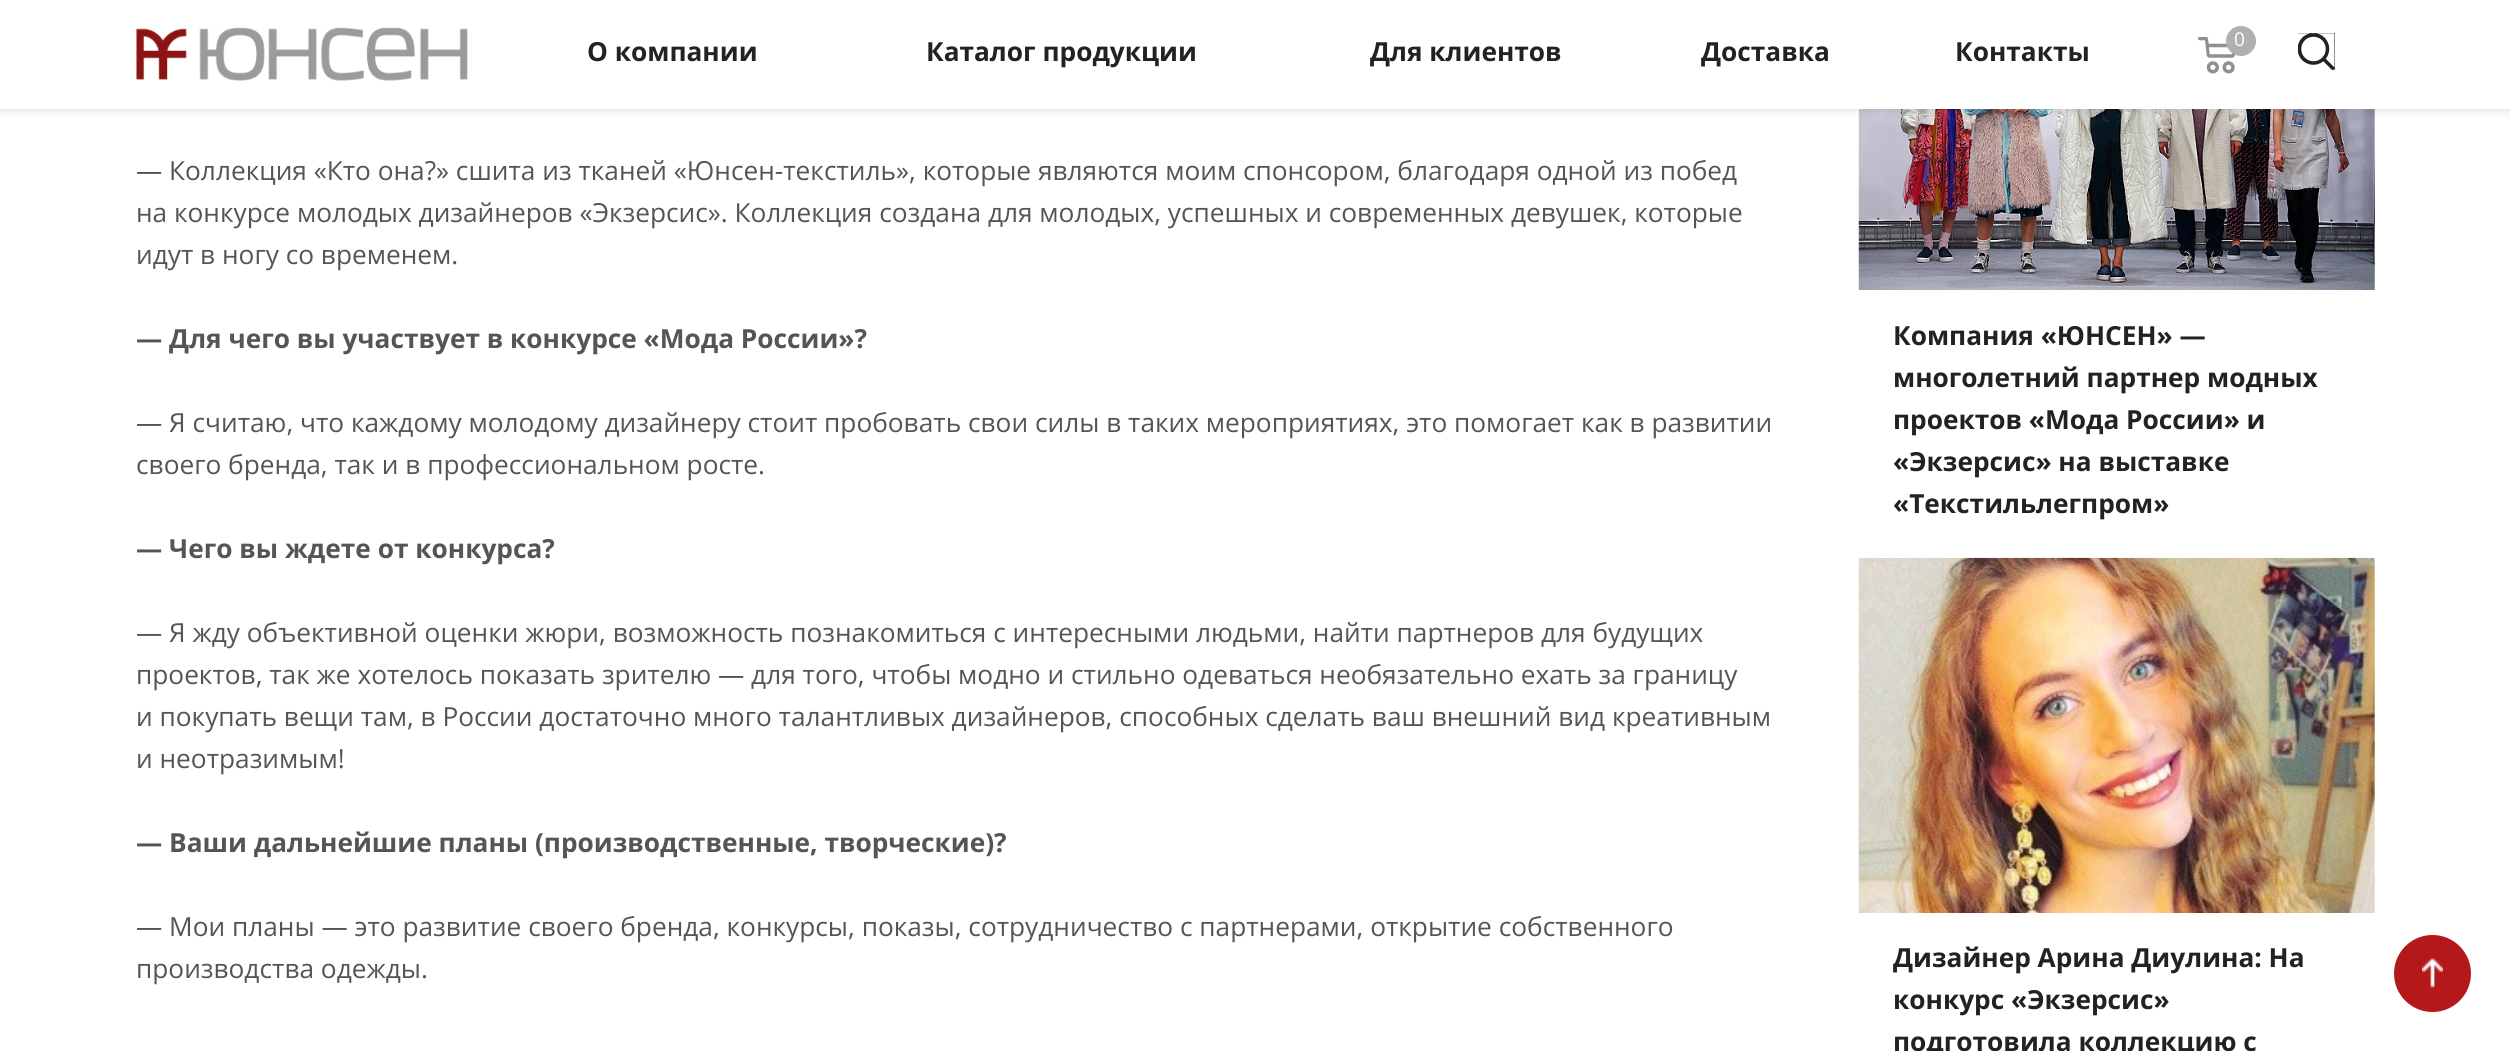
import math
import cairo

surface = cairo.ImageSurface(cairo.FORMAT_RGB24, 2510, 1051)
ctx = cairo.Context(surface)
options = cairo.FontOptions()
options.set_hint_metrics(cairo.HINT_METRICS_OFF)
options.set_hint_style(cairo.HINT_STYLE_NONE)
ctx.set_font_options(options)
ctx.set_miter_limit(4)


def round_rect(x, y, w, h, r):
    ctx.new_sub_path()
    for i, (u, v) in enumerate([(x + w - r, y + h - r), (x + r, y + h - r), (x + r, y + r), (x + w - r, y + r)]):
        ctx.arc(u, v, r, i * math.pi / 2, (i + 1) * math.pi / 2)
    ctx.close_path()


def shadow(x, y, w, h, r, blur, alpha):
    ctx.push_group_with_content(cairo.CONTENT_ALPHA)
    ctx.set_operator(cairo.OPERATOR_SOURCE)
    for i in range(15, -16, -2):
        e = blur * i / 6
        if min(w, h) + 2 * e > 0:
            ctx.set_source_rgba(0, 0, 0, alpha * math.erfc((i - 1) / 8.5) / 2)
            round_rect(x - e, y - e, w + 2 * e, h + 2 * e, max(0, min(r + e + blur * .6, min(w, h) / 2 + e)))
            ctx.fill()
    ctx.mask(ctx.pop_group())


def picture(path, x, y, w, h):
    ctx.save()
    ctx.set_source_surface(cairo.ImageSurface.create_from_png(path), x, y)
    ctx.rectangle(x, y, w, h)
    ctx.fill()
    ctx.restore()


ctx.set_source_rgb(1, 1, 1)
ctx.paint()
picture("img4.png", 1858, 109, 517, 181)
ctx.set_source_rgb(0, 0, 0)
shadow(0, 2, 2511, 108, 0, 4.5, 0.14)
ctx.set_source_rgb(1, 1, 1)
ctx.rectangle(0, 0, 2510, 109)
ctx.fill()
picture("img1.png", 136, 27, 332, 54)
ctx.select_font_face("Open Sans", cairo.FONT_SLANT_NORMAL, cairo.FONT_WEIGHT_BOLD)
ctx.set_font_size(26.25)
ctx.set_source_rgb(0.133, 0.133, 0.133)
ctx.move_to(587, 61)
ctx.show_text("О компании")
ctx.move_to(926, 61)
ctx.show_text("Каталог продукции")
ctx.move_to(1370, 61)
ctx.show_text("Для клиентов")
ctx.move_to(1701, 61)
ctx.show_text("Доставка")
ctx.move_to(1955, 61)
ctx.show_text("Контакты")
picture("img2.png", 2198, 37, 38, 37)
ctx.set_source_rgb(0.69, 0.69, 0.69)
ctx.arc(2241, 41, 15, 0, 2 * math.pi)
ctx.fill()
ctx.select_font_face("Open Sans")
ctx.set_font_size(19)
ctx.set_source_rgb(1, 1, 1)
ctx.move_to(2234, 46)
ctx.show_text("0")
ctx.set_source_rgb(0.133, 0.133, 0.133)
ctx.rectangle(2298, 33, 37, 37)
ctx.fill()
picture("img3.png", 2298, 33, 37, 37)
ctx.set_font_size(26.25)
ctx.set_source_rgb(0.333, 0.333, 0.333)
ctx.move_to(136, 180)
ctx.show_text("— Коллекция «Кто она?» сшита из тканей «Юнсен-текстиль», которые являются моим спонсором, благодаря одной из побед")
ctx.move_to(136, 222)
ctx.show_text("на конкурсе молодых дизайнеров «Экзерсис». Коллекция создана для молодых, успешных и современных девушек, которые")
ctx.move_to(136, 264)
ctx.show_text("идут в ногу со временем.")
ctx.select_font_face("Open Sans", cairo.FONT_SLANT_NORMAL, cairo.FONT_WEIGHT_BOLD)
ctx.move_to(136, 348)
ctx.show_text("— Для чего вы участвует в конкурсе «Мода России»?")
ctx.select_font_face("Open Sans")
ctx.move_to(136, 432)
ctx.show_text("— Я считаю, что каждому молодому дизайнеру стоит пробовать свои силы в таких мероприятиях, это помогает как в развитии")
ctx.move_to(136, 474)
ctx.show_text("своего бренда, так и в профессиональном росте.")
ctx.select_font_face("Open Sans", cairo.FONT_SLANT_NORMAL, cairo.FONT_WEIGHT_BOLD)
ctx.move_to(136, 558)
ctx.show_text("— Чего вы ждете от конкурса?")
ctx.select_font_face("Open Sans")
ctx.move_to(136, 642)
ctx.show_text("— Я жду объективной оценки жюри, возможность познакомиться с интересными людьми, найти партнеров для будущих")
ctx.move_to(136, 684)
ctx.show_text("проектов, так же хотелось показать зрителю — для того, чтобы модно и стильно одеваться необязательно ехать за границу")
ctx.move_to(136, 726)
ctx.show_text("и покупать вещи там, в России достаточно много талантливых дизайнеров, способных сделать ваш внешний вид креативным")
ctx.move_to(136, 768)
ctx.show_text("и неотразимым!")
ctx.select_font_face("Open Sans", cairo.FONT_SLANT_NORMAL, cairo.FONT_WEIGHT_BOLD)
ctx.move_to(136, 852)
ctx.show_text("— Ваши дальнейшие планы (производственные, творческие)?")
ctx.select_font_face("Open Sans")
ctx.move_to(136, 936)
ctx.show_text("— Мои планы — это развитие своего бренда, конкурсы, показы, сотрудничество с партнерами, открытие собственного")
ctx.move_to(136, 978)
ctx.show_text("производства одежды.")
ctx.select_font_face("Open Sans", cairo.FONT_SLANT_NORMAL, cairo.FONT_WEIGHT_BOLD)
ctx.set_source_rgb(0.133, 0.133, 0.133)
ctx.move_to(1893, 345)
ctx.show_text("Компания «ЮНСЕН» —")
ctx.move_to(1893, 387)
ctx.show_text("многолетний партнер модных")
ctx.move_to(1893, 429)
ctx.show_text("проектов «Мода России» и")
ctx.move_to(1893, 471)
ctx.show_text("«Экзерсис» на выставке")
ctx.move_to(1893, 513)
ctx.show_text("«Текстильлегпром»")
picture("img5.png", 1858, 557, 517, 356)
ctx.move_to(1893, 967)
ctx.show_text("Дизайнер Арина Диулина: На")
ctx.move_to(1893, 1009)
ctx.show_text("конкурс «Экзерсис»")
ctx.move_to(1893, 1051)
ctx.show_text("подготовила коллекцию с")
ctx.set_source_rgb(0.706, 0.094, 0.094)
ctx.new_path()
ctx.arc(2432.5, 973.5, 38.5, 0, 2 * math.pi)
ctx.fill()
picture("img6.png", 2422, 958, 21, 30)
surface.write_to_png("page.png")
